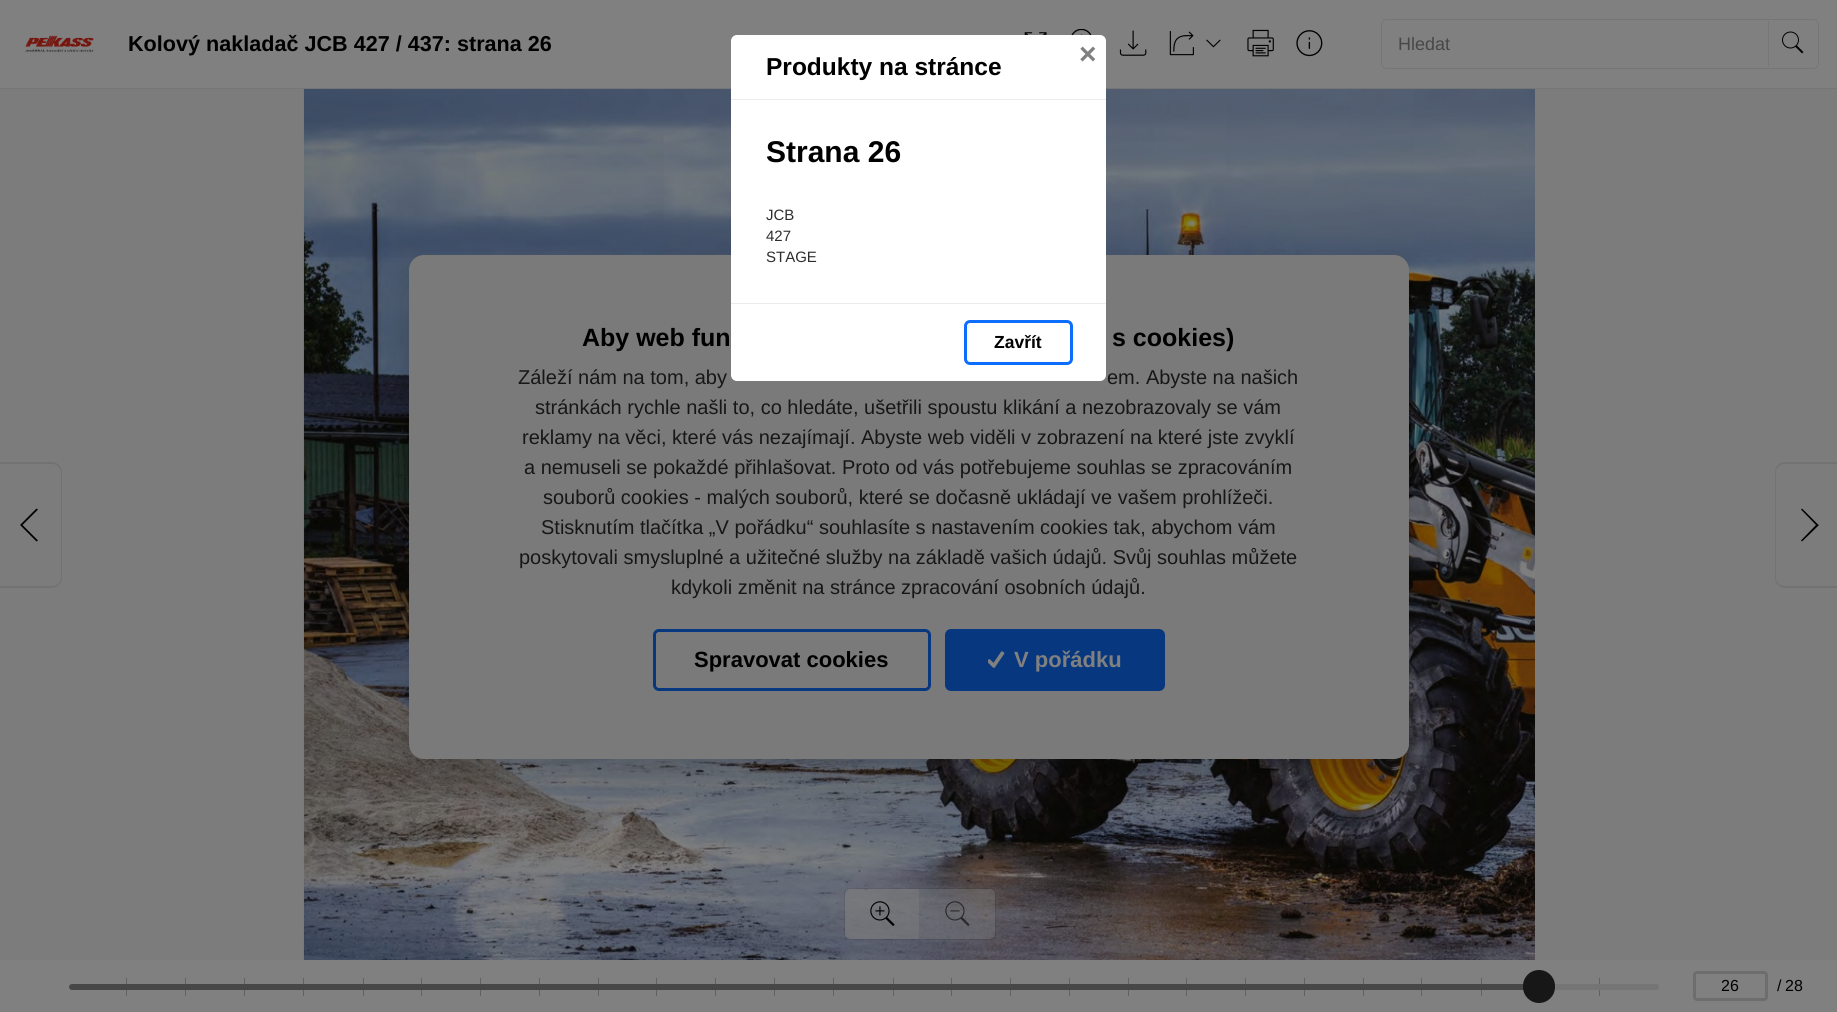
import math
import cairo

surface = cairo.ImageSurface(cairo.FORMAT_RGB24, 1837, 1012)
ctx = cairo.Context(surface)
options = cairo.FontOptions()
options.set_hint_metrics(cairo.HINT_METRICS_OFF)
options.set_hint_style(cairo.HINT_STYLE_NONE)
ctx.set_font_options(options)
ctx.set_miter_limit(4)


def round_rect(x, y, w, h, r):
    ctx.new_sub_path()
    for i, (u, v) in enumerate([(x + w - r, y + h - r), (x + r, y + h - r), (x + r, y + r), (x + w - r, y + r)]):
        ctx.arc(u, v, r, i * math.pi / 2, (i + 1) * math.pi / 2)
    ctx.close_path()


def shadow(x, y, w, h, r, blur, alpha):
    ctx.push_group_with_content(cairo.CONTENT_ALPHA)
    ctx.set_operator(cairo.OPERATOR_SOURCE)
    for i in range(15, -16, -2):
        e = blur * i / 6
        if min(w, h) + 2 * e > 0:
            ctx.set_source_rgba(0, 0, 0, alpha * math.erfc((i - 1) / 8.5) / 2)
            round_rect(x - e, y - e, w + 2 * e, h + 2 * e, max(0, min(r + e + blur * .6, min(w, h) / 2 + e)))
            ctx.fill()
    ctx.mask(ctx.pop_group())


def picture(path, x, y, w, h):
    ctx.save()
    ctx.set_source_surface(cairo.ImageSurface.create_from_png(path), x, y)
    ctx.rectangle(x, y, w, h)
    ctx.fill()
    ctx.restore()


ctx.set_source_rgb(0.502, 0.502, 0.502)
ctx.paint()
ctx.set_source_rgb(0.463, 0.463, 0.463)
ctx.rectangle(0, 88, 1837, 1)
ctx.fill()
picture("img1.png", 25, 35, 69, 18)
ctx.select_font_face("Liberation Sans", cairo.FONT_SLANT_NORMAL, cairo.FONT_WEIGHT_BOLD)
ctx.set_font_size(21.6)
ctx.set_source_rgb(0, 0, 0)
ctx.move_to(128, 51)
ctx.show_text("Kolový nakladač JCB 427 / 437: strana 26")
picture("img2.png", 1024, 32, 23, 3)
picture("img3.png", 1071, 29, 21, 6)
picture("img4.png", 1119, 30, 28, 26)
picture("img5.png", 1169, 31, 25, 25)
picture("img6.png", 1206, 39, 15, 9)
picture("img7.png", 1247, 29, 27, 28)
picture("img8.png", 1296, 30, 27, 27)
round_rect(1381.5, 19.5, 437, 49, 5.5)
ctx.set_source_rgb(0.463, 0.463, 0.463)
ctx.set_line_width(1)
ctx.stroke()
ctx.select_font_face("Liberation Sans")
ctx.set_font_size(18)
ctx.set_source_rgb(0.278, 0.278, 0.278)
ctx.move_to(1398, 50)
ctx.show_text("Hledat")
ctx.set_source_rgb(0.463, 0.463, 0.463)
ctx.new_path()
ctx.move_to(1768, 68)
ctx.line_to(1768, 20)
ctx.line_to(1769, 22)
ctx.line_to(1769, 65)
ctx.close_path()
ctx.fill()
picture("img9.png", 1782, 31, 22, 23)
ctx.set_source_rgb(0.486, 0.486, 0.486)
ctx.rectangle(0, 89, 1837, 871)
ctx.fill()
picture("img10.png", 303, 88, 1232, 872)
ctx.set_source_rgb(0, 0, 0)
shadow(409, 278, 1000, 503, 15, 19, 0.15)
ctx.set_source_rgb(0.478, 0.478, 0.478)
round_rect(409, 255, 1000, 504, 15)
ctx.fill()
ctx.set_source_rgb(1, 1, 1)
round_rect(731, 35, 375, 346, 6)
ctx.fill()
ctx.set_source_rgb(0.914, 0.925, 0.937)
ctx.rectangle(731, 99, 375, 1)
ctx.fill()
ctx.select_font_face("Liberation Sans", cairo.FONT_SLANT_NORMAL, cairo.FONT_WEIGHT_BOLD)
ctx.set_font_size(30)
ctx.set_source_rgb(0.502, 0.502, 0.502)
ctx.move_to(1079, 64)
ctx.show_text("×")
ctx.set_font_size(24.5)
ctx.set_source_rgb(0, 0, 0)
ctx.move_to(766, 75)
ctx.show_text("Produkty na stránce")
ctx.set_font_size(30)
ctx.move_to(766, 162)
ctx.show_text("Strana 26")
ctx.select_font_face("Liberation Sans")
ctx.set_font_size(15)
ctx.set_source_rgb(0.18, 0.18, 0.18)
ctx.move_to(766, 220)
ctx.show_text("JCB")
ctx.move_to(766, 241)
ctx.show_text("427")
ctx.move_to(766, 262)
ctx.show_text("STAGE")
ctx.set_source_rgb(0.914, 0.925, 0.937)
ctx.rectangle(731, 303, 375, 1)
ctx.fill()
round_rect(965.5, 321.5, 106, 42, 4.5)
ctx.set_source_rgb(0.051, 0.431, 0.992)
ctx.set_line_width(3)
ctx.stroke()
ctx.select_font_face("Liberation Sans", cairo.FONT_SLANT_NORMAL, cairo.FONT_WEIGHT_BOLD)
ctx.set_font_size(17.5)
ctx.set_source_rgb(0, 0, 0)
ctx.move_to(994, 348)
ctx.show_text("Zavřít")
ctx.new_path()
ctx.move_to(36.5, 508.5)
ctx.line_to(20, 525)
ctx.line_to(36.5, 541.5)
ctx.line_to(38, 540.5)
ctx.line_to(22.5, 525)
ctx.line_to(38, 509.5)
ctx.close_path()
ctx.fill()
ctx.set_source_rgba(0, 0, 0, 0.08)
ctx.set_fill_rule(cairo.FILL_RULE_EVEN_ODD)
ctx.new_path()
ctx.move_to(0, 462)
ctx.line_to(52, 462)
ctx.curve_to(58, 462, 62, 467, 62, 472)
ctx.line_to(62, 578)
ctx.curve_to(62, 583, 58, 588, 52, 588)
ctx.line_to(0, 588)
ctx.close_path()
ctx.move_to(0, 464)
ctx.line_to(52, 464)
ctx.curve_to(57, 464, 61, 468, 61, 472)
ctx.line_to(61, 578)
ctx.curve_to(61, 582, 57, 586, 52, 586)
ctx.line_to(0, 586)
ctx.close_path()
ctx.fill()
ctx.set_source_rgb(0, 0, 0)
ctx.set_fill_rule(cairo.FILL_RULE_WINDING)
ctx.new_path()
ctx.move_to(1802, 508.5)
ctx.line_to(1801, 509.5)
ctx.line_to(1816, 525)
ctx.line_to(1801, 540.5)
ctx.line_to(1802, 541.5)
ctx.line_to(1819, 525)
ctx.line_to(1818, 524.5)
ctx.close_path()
ctx.fill()
ctx.set_source_rgba(0, 0, 0, 0.08)
ctx.set_fill_rule(cairo.FILL_RULE_EVEN_ODD)
ctx.new_path()
ctx.move_to(1785, 462)
ctx.line_to(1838, 462)
ctx.line_to(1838, 588)
ctx.line_to(1785, 588)
ctx.curve_to(1779, 588, 1775, 583, 1775, 578)
ctx.line_to(1775, 472)
ctx.curve_to(1775, 467, 1779, 462, 1785, 462)
ctx.close_path()
ctx.move_to(1785, 464)
ctx.line_to(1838, 464)
ctx.line_to(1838, 586)
ctx.line_to(1785, 586)
ctx.curve_to(1780, 586, 1776, 582, 1776, 578)
ctx.line_to(1776, 472)
ctx.curve_to(1776, 468, 1780, 464, 1785, 464)
ctx.close_path()
ctx.fill()
round_rect(844.5, 888.5, 151, 51, 5.5)
ctx.set_line_width(1)
ctx.stroke()
ctx.set_source_rgba(0.502, 0.502, 0.502, 0.6)
ctx.new_path()
ctx.move_to(851, 889)
ctx.line_to(920, 889)
ctx.line_to(920, 939)
ctx.line_to(851, 939)
ctx.curve_to(847.5, 939, 845, 936.5, 845, 933)
ctx.line_to(845, 895)
ctx.curve_to(845, 891.5, 847.5, 889, 851, 889)
ctx.close_path()
ctx.fill()
picture("img11.png", 870, 901, 25, 25)
ctx.set_source_rgba(0, 0, 0, 0.08)
ctx.rectangle(919, 889, 1, 50)
ctx.fill()
ctx.set_source_rgba(0.502, 0.502, 0.502, 0.36)
ctx.new_path()
ctx.move_to(920, 889)
ctx.line_to(989, 889)
ctx.curve_to(992.5, 889, 995, 891.5, 995, 895)
ctx.line_to(995, 933)
ctx.curve_to(995, 936.5, 992.5, 939, 989, 939)
ctx.line_to(920, 939)
ctx.close_path()
ctx.fill()
picture("img12.png", 945, 901, 25, 25)
ctx.set_font_size(25)
ctx.set_source_rgb(0, 0, 0)
ctx.move_to(582, 346)
ctx.show_text("Aby web fun")
ctx.move_to(1112, 346)
ctx.show_text("s cookies)")
ctx.select_font_face("Liberation Sans")
ctx.set_font_size(20)
ctx.set_source_rgb(0.09, 0.09, 0.09)
ctx.move_to(518, 384)
ctx.show_text("Záleží nám na tom, aby")
ctx.move_to(1107, 384)
ctx.show_text("em. Abyste na našich")
ctx.move_to(535, 414)
ctx.show_text("stránkách rychle našli to, co hledáte, ušetřili spoustu klikání a nezobrazovaly se vám")
ctx.move_to(522, 444)
ctx.show_text("reklamy na věci, které vás nezajímají. Abyste web viděli v zobrazení na které jste zvyklí")
ctx.move_to(524, 474)
ctx.show_text("a nemuseli se pokaždé přihlašovat. Proto od vás potřebujeme souhlas se zpracováním")
ctx.move_to(543, 504)
ctx.show_text("souborů cookies - malých souborů, které se dočasně ukládají ve vašem prohlížeči.")
ctx.move_to(541, 534)
ctx.show_text("Stisknutím tlačítka „V pořádku“ souhlasíte s nastavením cookies tak, abychom vám")
ctx.move_to(519, 564)
ctx.show_text("poskytovali smysluplné a užitečné služby na základě vašich údajů. Svůj souhlas můžete")
ctx.move_to(671, 594)
ctx.show_text("kdykoli změnit na stránce zpracování osobních údajů.")
round_rect(654.5, 630.5, 275, 59, 4.5)
ctx.set_source_rgb(0.027, 0.216, 0.498)
ctx.set_line_width(3)
ctx.stroke()
ctx.select_font_face("Liberation Sans", cairo.FONT_SLANT_NORMAL, cairo.FONT_WEIGHT_BOLD)
ctx.set_font_size(22)
ctx.set_source_rgb(0, 0, 0)
ctx.move_to(694, 667)
ctx.show_text("Spravovat cookies")
ctx.set_source_rgb(0.027, 0.216, 0.498)
round_rect(946.5, 630.5, 217, 59, 4.5)
ctx.fill_preserve()
ctx.stroke()
picture("img13.png", 988, 651, 17, 17)
ctx.set_source_rgb(0.502, 0.502, 0.502)
ctx.move_to(1014, 667)
ctx.show_text("V pořádku")
ctx.set_source_rgb(0.384, 0.384, 0.384)
ctx.rectangle(126, 978, 1, 18)
ctx.fill()
ctx.rectangle(185, 978, 1, 18)
ctx.fill()
ctx.rectangle(244, 978, 1, 18)
ctx.fill()
ctx.rectangle(303, 978, 1, 18)
ctx.fill()
ctx.rectangle(363, 978, 1, 18)
ctx.fill()
ctx.rectangle(421, 978, 1, 18)
ctx.fill()
ctx.rectangle(480, 978, 1, 18)
ctx.fill()
ctx.rectangle(539, 978, 1, 18)
ctx.fill()
ctx.rectangle(598, 978, 1, 18)
ctx.fill()
ctx.rectangle(656, 978, 1, 18)
ctx.fill()
ctx.rectangle(715, 978, 1, 18)
ctx.fill()
ctx.rectangle(774, 978, 1, 18)
ctx.fill()
ctx.rectangle(833, 978, 1, 18)
ctx.fill()
ctx.rectangle(893, 978, 1, 18)
ctx.fill()
ctx.rectangle(951, 978, 1, 18)
ctx.fill()
ctx.rectangle(1010, 978, 1, 18)
ctx.fill()
ctx.rectangle(1069, 978, 1, 18)
ctx.fill()
ctx.rectangle(1128, 978, 1, 18)
ctx.fill()
ctx.rectangle(1186, 978, 1, 18)
ctx.fill()
ctx.rectangle(1245, 978, 1, 18)
ctx.fill()
ctx.rectangle(1304, 978, 1, 18)
ctx.fill()
ctx.rectangle(1363, 978, 1, 18)
ctx.fill()
ctx.rectangle(1421, 978, 1, 18)
ctx.fill()
ctx.rectangle(1481, 978, 1, 18)
ctx.fill()
ctx.rectangle(1599, 978, 1, 18)
ctx.fill()
ctx.set_source_rgb(0.459, 0.459, 0.459)
round_rect(69, 984, 1590, 6, 3)
ctx.fill()
ctx.set_source_rgb(0.278, 0.278, 0.278)
ctx.new_path()
ctx.move_to(72, 984)
ctx.line_to(1541, 984)
ctx.line_to(1541, 990)
ctx.line_to(72, 990)
ctx.curve_to(70.5, 990, 69, 988.5, 69, 987)
ctx.curve_to(69, 985.5, 70.5, 984, 72, 984)
ctx.close_path()
ctx.fill()
ctx.set_source_rgb(0.09, 0.09, 0.09)
round_rect(1523, 970, 32, 33, 16)
ctx.fill()
round_rect(1694.5, 972.5, 72, 27, 2.5)
ctx.set_source_rgb(0.427, 0.427, 0.427)
ctx.stroke()
ctx.select_font_face("Liberation Sans")
ctx.set_font_size(16)
ctx.set_source_rgb(0, 0, 0)
ctx.move_to(1721, 991)
ctx.show_text("26")
ctx.move_to(1777, 991)
ctx.show_text("/")
ctx.move_to(1785, 991)
ctx.show_text("28")
surface.write_to_png("page.png")
